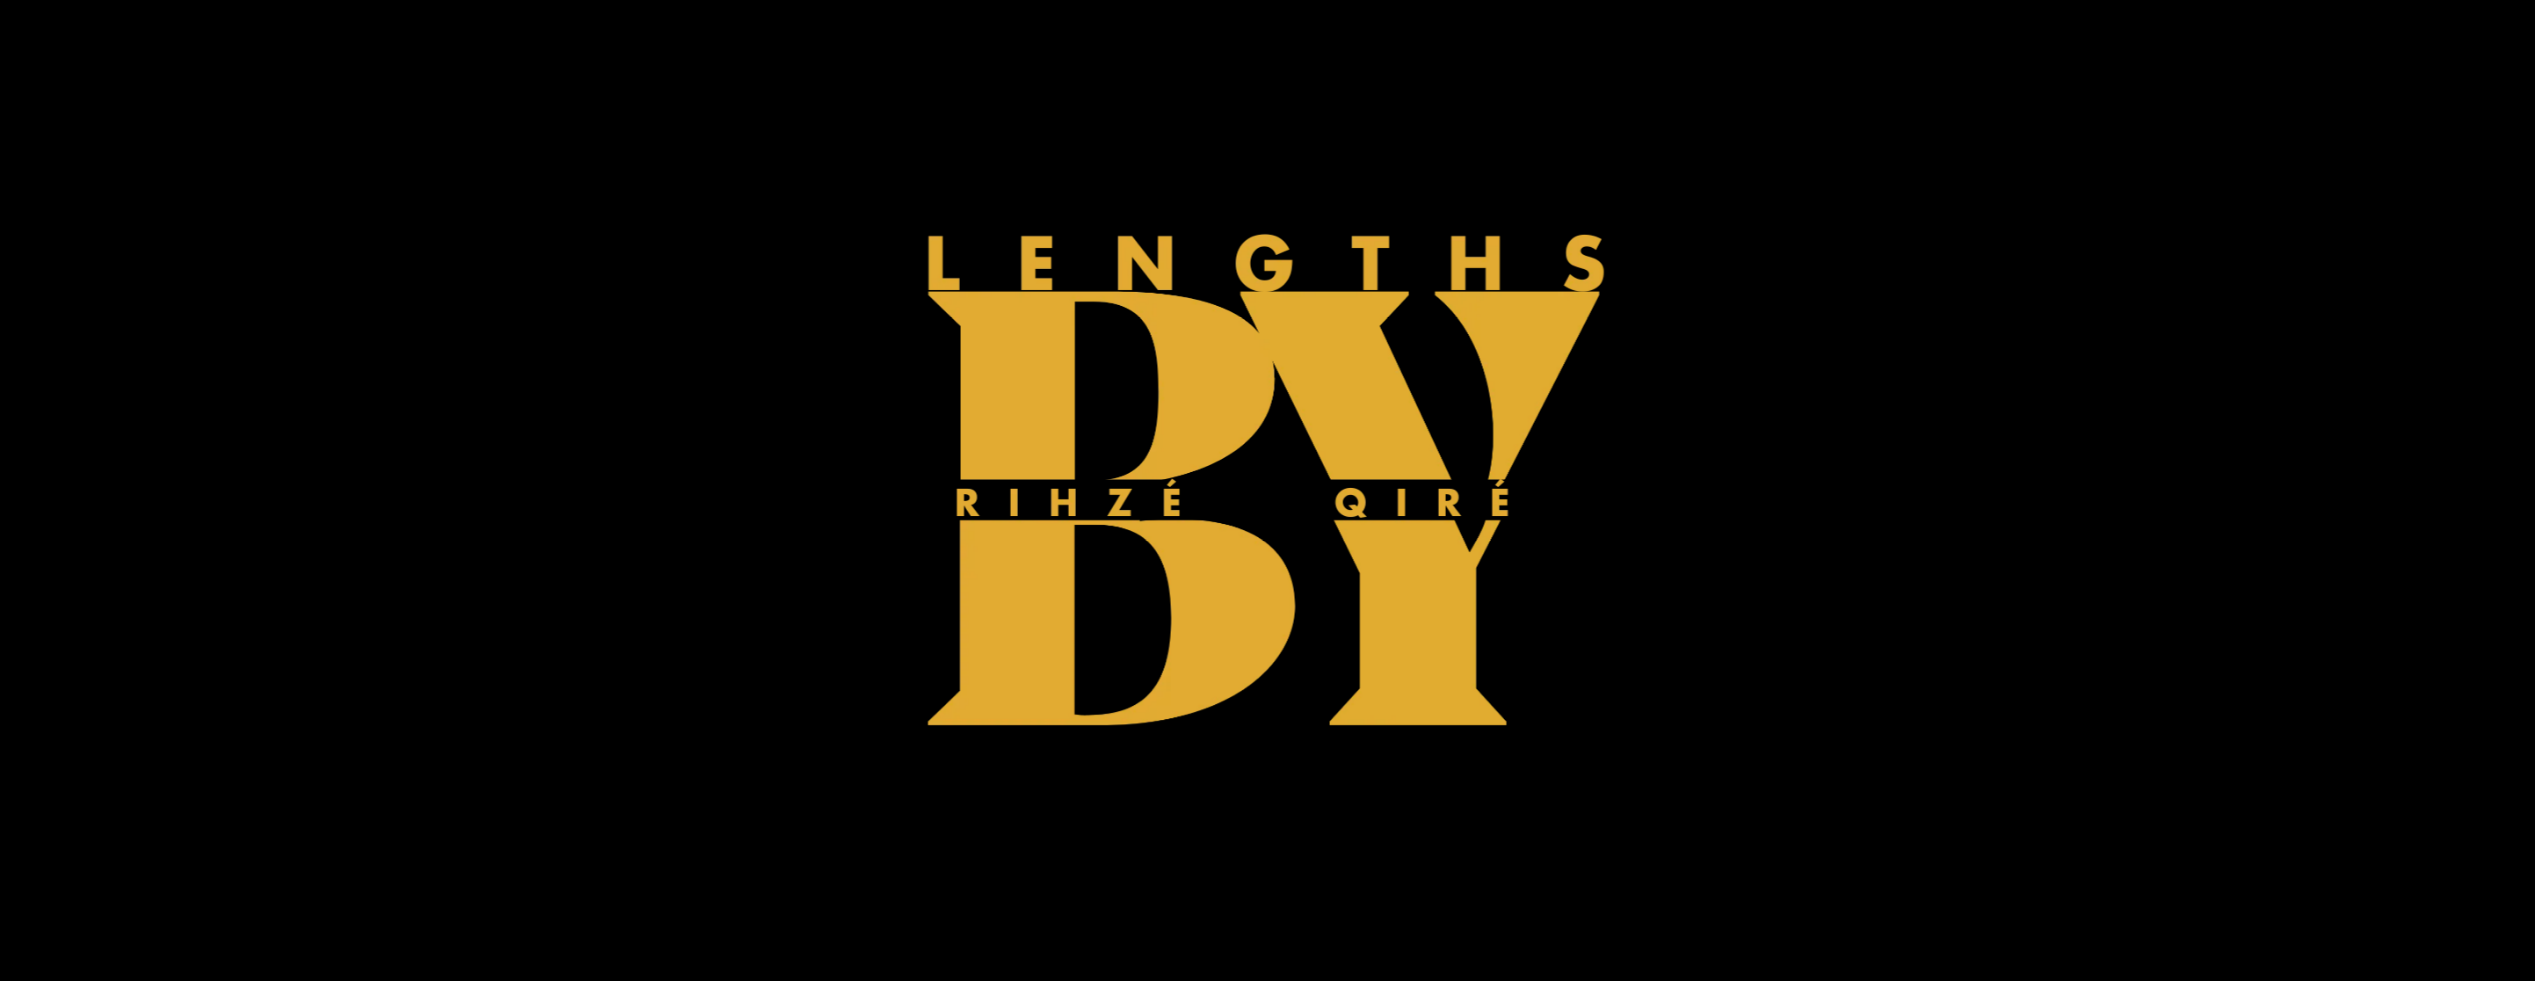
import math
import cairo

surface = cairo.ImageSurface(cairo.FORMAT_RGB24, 2535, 981)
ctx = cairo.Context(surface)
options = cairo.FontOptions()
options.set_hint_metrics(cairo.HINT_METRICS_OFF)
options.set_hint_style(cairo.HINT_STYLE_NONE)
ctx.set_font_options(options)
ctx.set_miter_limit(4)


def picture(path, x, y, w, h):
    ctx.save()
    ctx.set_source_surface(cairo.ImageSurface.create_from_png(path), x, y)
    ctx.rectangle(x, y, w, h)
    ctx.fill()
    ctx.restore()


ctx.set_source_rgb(0, 0, 0)
ctx.paint()
picture("img1.png", 927, 233, 678, 493)
surface.write_to_png("page.png")
